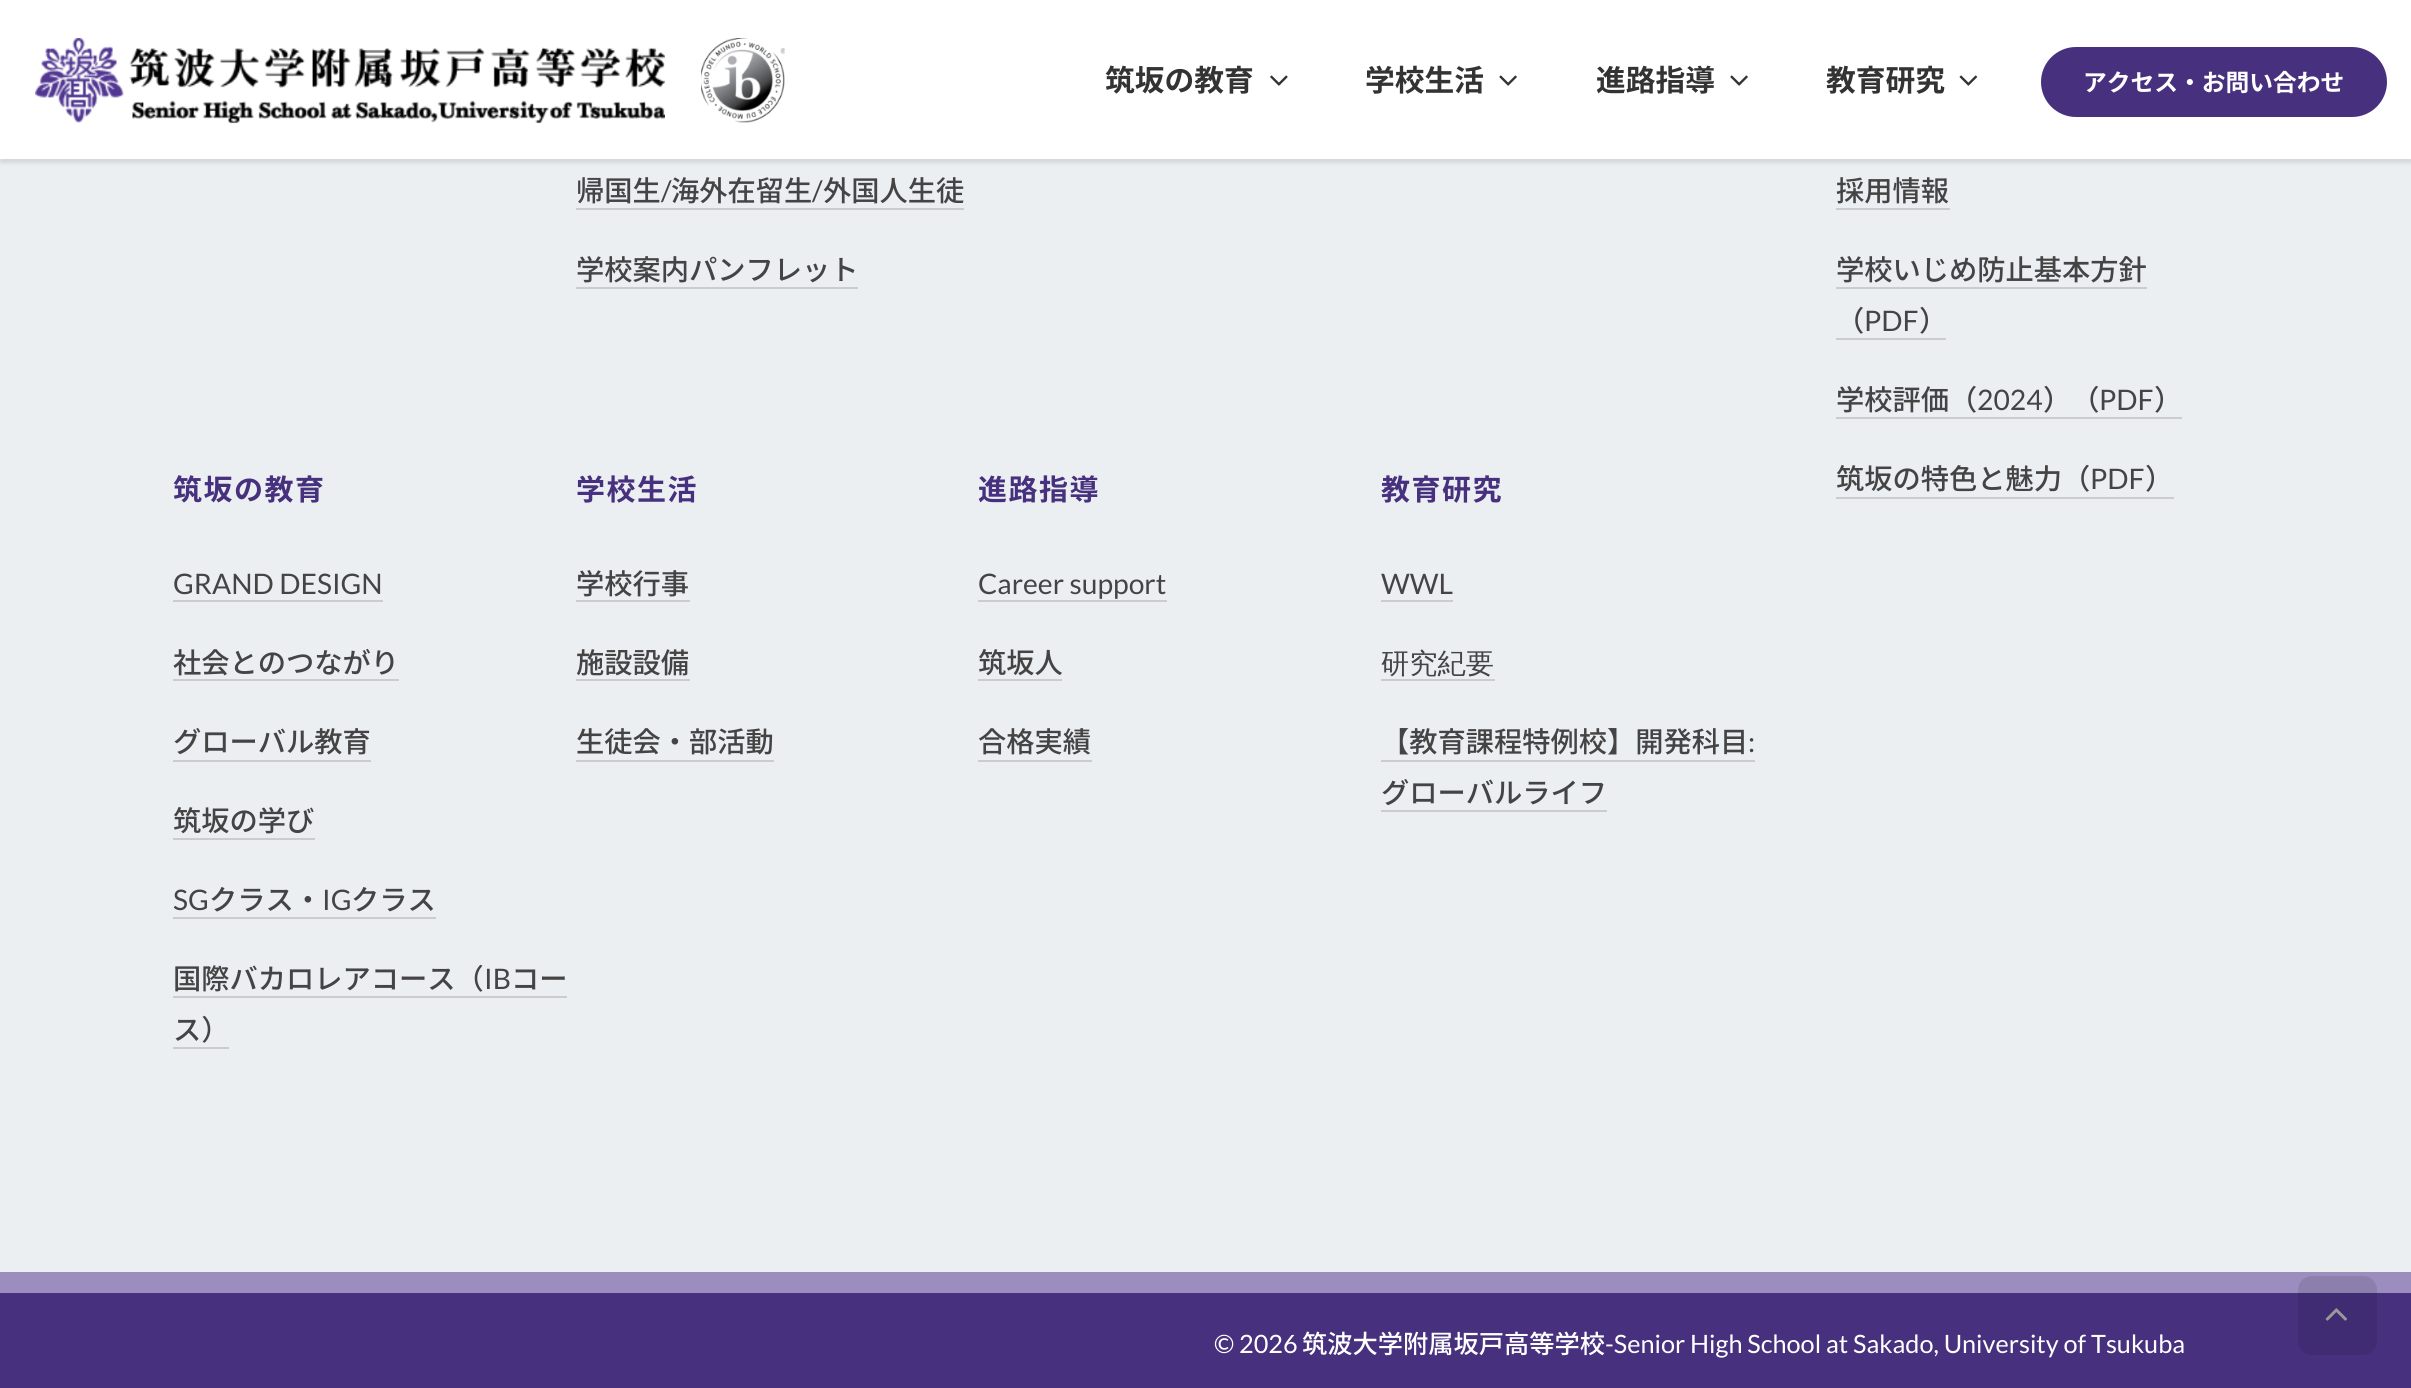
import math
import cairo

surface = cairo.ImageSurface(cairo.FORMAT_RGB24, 2411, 1388)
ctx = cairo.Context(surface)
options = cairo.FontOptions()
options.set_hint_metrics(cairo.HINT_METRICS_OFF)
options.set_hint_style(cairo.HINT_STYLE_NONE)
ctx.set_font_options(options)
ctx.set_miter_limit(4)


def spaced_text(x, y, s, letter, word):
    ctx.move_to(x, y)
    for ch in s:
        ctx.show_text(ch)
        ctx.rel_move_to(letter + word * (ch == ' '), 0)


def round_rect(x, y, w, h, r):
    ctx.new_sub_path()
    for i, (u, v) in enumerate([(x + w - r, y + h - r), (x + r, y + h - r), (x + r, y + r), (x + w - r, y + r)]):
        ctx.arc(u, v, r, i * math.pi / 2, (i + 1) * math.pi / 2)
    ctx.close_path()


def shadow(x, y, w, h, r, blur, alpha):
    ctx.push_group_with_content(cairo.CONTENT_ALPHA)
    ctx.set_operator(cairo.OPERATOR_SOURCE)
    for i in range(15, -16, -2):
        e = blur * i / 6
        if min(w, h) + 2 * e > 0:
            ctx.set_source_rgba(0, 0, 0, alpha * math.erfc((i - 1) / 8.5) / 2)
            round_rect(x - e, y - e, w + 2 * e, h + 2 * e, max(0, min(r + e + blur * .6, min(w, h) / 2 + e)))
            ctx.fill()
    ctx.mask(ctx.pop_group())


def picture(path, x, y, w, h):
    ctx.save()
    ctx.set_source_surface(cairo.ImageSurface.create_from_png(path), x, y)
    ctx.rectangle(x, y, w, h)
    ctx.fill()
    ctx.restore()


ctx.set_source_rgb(0.918, 0.937, 0.949)
ctx.paint()
ctx.set_source_rgb(0, 0, 0)
shadow(0, 4, 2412, 159, 0, 2, 0.1)
ctx.set_source_rgb(1, 1, 1)
ctx.rectangle(0, 0, 2411, 159)
ctx.fill()
picture("img1.png", 35, 38, 750, 86)
ctx.select_font_face("Noto Sans JP", cairo.FONT_SLANT_NORMAL, cairo.FONT_WEIGHT_BOLD)
ctx.set_font_size(29.75)
ctx.set_source_rgb(0.2, 0.2, 0.2)
ctx.move_to(1105, 91)
ctx.show_text("筑坂の教育")
picture("img2.png", 1270, 75, 18, 11)
ctx.move_to(1365, 91)
ctx.show_text("学校生活")
picture("img3.png", 1499, 75, 18, 11)
ctx.move_to(1596, 91)
ctx.show_text("進路指導")
picture("img3.png", 1730, 75, 18, 11)
ctx.move_to(1826, 91)
ctx.show_text("教育研究")
picture("img4.png", 1959, 75, 19, 11)
ctx.set_source_rgb(0.278, 0.192, 0.494)
round_rect(2041, 47, 346, 70, 35)
ctx.fill()
ctx.set_font_size(23.75)
ctx.set_source_rgb(1, 1, 1)
ctx.move_to(2083, 91)
ctx.show_text("アクセス・お問い合わせ")
ctx.select_font_face("Noto Sans JP Medium")
ctx.set_font_size(28.25)
ctx.set_source_rgb(0.267, 0.267, 0.267)
ctx.move_to(576, 201)
ctx.show_text("帰国生")
ctx.select_font_face("Lato")
ctx.move_to(661, 201)
ctx.show_text("/")
ctx.set_source_rgb(0.8, 0.8, 0.8)
ctx.rectangle(576, 208, 388, 2)
ctx.fill()
ctx.select_font_face("Noto Sans JP Medium")
ctx.set_source_rgb(0.267, 0.267, 0.267)
ctx.move_to(671, 201)
ctx.show_text("海外在留生")
ctx.select_font_face("Lato")
ctx.move_to(812, 201)
ctx.show_text("/")
ctx.select_font_face("Noto Sans JP Medium")
ctx.move_to(823, 201)
ctx.show_text("外国人生徒")
ctx.move_to(576, 280)
ctx.show_text("学校案内パンフレット")
ctx.set_source_rgb(0.8, 0.8, 0.8)
ctx.rectangle(576, 287, 282, 2)
ctx.fill()
ctx.select_font_face("Noto Sans JP", cairo.FONT_SLANT_NORMAL, cairo.FONT_WEIGHT_BOLD)
ctx.set_font_size(29)
ctx.set_source_rgb(0.278, 0.192, 0.494)
spaced_text(173, 500, "筑坂の教育", 1.5, 0)
ctx.select_font_face("Lato")
ctx.set_font_size(28.25)
ctx.set_source_rgb(0.267, 0.267, 0.267)
ctx.move_to(173, 594)
ctx.show_text("GRAND DESIGN")
ctx.set_source_rgb(0.8, 0.8, 0.8)
ctx.rectangle(173, 600, 210, 2)
ctx.fill()
ctx.select_font_face("Noto Sans JP Medium")
ctx.set_source_rgb(0.267, 0.267, 0.267)
ctx.move_to(173, 673)
ctx.show_text("社会とのつながり")
ctx.set_source_rgb(0.8, 0.8, 0.8)
ctx.rectangle(173, 679, 226, 2)
ctx.fill()
ctx.set_source_rgb(0.267, 0.267, 0.267)
ctx.move_to(173, 752)
ctx.show_text("グローバル教育")
ctx.set_source_rgb(0.8, 0.8, 0.8)
ctx.rectangle(173, 760, 198, 2)
ctx.fill()
ctx.set_source_rgb(0.267, 0.267, 0.267)
ctx.move_to(173, 831)
ctx.show_text("筑坂の学び")
ctx.set_source_rgb(0.8, 0.8, 0.8)
ctx.rectangle(173, 838, 142, 2)
ctx.fill()
ctx.select_font_face("Lato")
ctx.set_source_rgb(0.267, 0.267, 0.267)
ctx.move_to(173, 910)
ctx.show_text("SG")
ctx.set_source_rgb(0.8, 0.8, 0.8)
ctx.rectangle(173, 917, 263, 2)
ctx.fill()
ctx.select_font_face("Noto Sans JP Medium")
ctx.set_source_rgb(0.267, 0.267, 0.267)
ctx.move_to(209, 910)
ctx.show_text("クラス・")
ctx.select_font_face("Lato")
ctx.move_to(322, 910)
ctx.show_text("IG")
ctx.select_font_face("Noto Sans JP Medium")
ctx.move_to(351, 910)
ctx.show_text("クラス")
ctx.move_to(173, 989)
ctx.show_text("国際バカロレアコース（")
ctx.select_font_face("Lato")
ctx.move_to(484, 989)
ctx.show_text("IB")
ctx.select_font_face("Noto Sans JP Medium")
ctx.move_to(511, 989)
ctx.show_text("コー")
ctx.set_source_rgb(0.8, 0.8, 0.8)
ctx.rectangle(173, 996, 394, 2)
ctx.fill()
ctx.set_source_rgb(0.267, 0.267, 0.267)
ctx.move_to(173, 1040)
ctx.show_text("ス）")
ctx.set_source_rgb(0.8, 0.8, 0.8)
ctx.rectangle(173, 1047, 56, 2)
ctx.fill()
ctx.select_font_face("Noto Sans JP", cairo.FONT_SLANT_NORMAL, cairo.FONT_WEIGHT_BOLD)
ctx.set_font_size(29)
ctx.set_source_rgb(0.278, 0.192, 0.494)
spaced_text(576, 500, "学校生活", 1.5, 0)
ctx.select_font_face("Noto Sans JP Medium")
ctx.set_font_size(28.25)
ctx.set_source_rgb(0.267, 0.267, 0.267)
ctx.move_to(576, 594)
ctx.show_text("学校行事")
ctx.set_source_rgb(0.8, 0.8, 0.8)
ctx.rectangle(576, 600, 114, 2)
ctx.fill()
ctx.set_source_rgb(0.267, 0.267, 0.267)
ctx.move_to(576, 673)
ctx.show_text("施設設備")
ctx.set_source_rgb(0.8, 0.8, 0.8)
ctx.rectangle(576, 679, 114, 2)
ctx.fill()
ctx.set_source_rgb(0.267, 0.267, 0.267)
ctx.move_to(576, 752)
ctx.show_text("生徒会・部活動")
ctx.set_source_rgb(0.8, 0.8, 0.8)
ctx.rectangle(576, 760, 198, 2)
ctx.fill()
ctx.select_font_face("Noto Sans JP", cairo.FONT_SLANT_NORMAL, cairo.FONT_WEIGHT_BOLD)
ctx.set_font_size(29)
ctx.set_source_rgb(0.278, 0.192, 0.494)
spaced_text(978, 500, "進路指導", 1.5, 0)
ctx.select_font_face("Lato")
ctx.set_font_size(28.25)
ctx.set_source_rgb(0.267, 0.267, 0.267)
ctx.move_to(978, 594)
ctx.show_text("Career support")
ctx.set_source_rgb(0.8, 0.8, 0.8)
ctx.rectangle(978, 600, 189, 2)
ctx.fill()
ctx.select_font_face("Noto Sans JP Medium")
ctx.set_source_rgb(0.267, 0.267, 0.267)
ctx.move_to(978, 673)
ctx.show_text("筑坂人")
ctx.set_source_rgb(0.8, 0.8, 0.8)
ctx.rectangle(978, 679, 84, 2)
ctx.fill()
ctx.set_source_rgb(0.267, 0.267, 0.267)
ctx.move_to(978, 752)
ctx.show_text("合格実績")
ctx.set_source_rgb(0.8, 0.8, 0.8)
ctx.rectangle(978, 760, 114, 2)
ctx.fill()
ctx.select_font_face("Noto Sans JP", cairo.FONT_SLANT_NORMAL, cairo.FONT_WEIGHT_BOLD)
ctx.set_font_size(29)
ctx.set_source_rgb(0.278, 0.192, 0.494)
spaced_text(1381, 500, "教育研究", 1.5, 0)
ctx.select_font_face("Lato")
ctx.set_font_size(28.25)
ctx.set_source_rgb(0.267, 0.267, 0.267)
ctx.move_to(1381, 594)
ctx.show_text("WWL")
ctx.set_source_rgb(0.8, 0.8, 0.8)
ctx.rectangle(1381, 600, 72, 2)
ctx.fill()
ctx.select_font_face("WenQuanYi Zen Hei Medium")
ctx.set_source_rgb(0.267, 0.267, 0.267)
ctx.move_to(1381, 673)
ctx.show_text("研究紀要")
ctx.set_source_rgb(0.8, 0.8, 0.8)
ctx.rectangle(1381, 679, 114, 2)
ctx.fill()
ctx.select_font_face("Noto Sans JP Medium")
ctx.set_source_rgb(0.267, 0.267, 0.267)
ctx.move_to(1381, 752)
ctx.show_text("【教育課程特例校】開発科目")
ctx.select_font_face("Lato")
ctx.move_to(1748, 752)
ctx.show_text(":")
ctx.set_source_rgb(0.8, 0.8, 0.8)
ctx.rectangle(1381, 760, 374, 2)
ctx.fill()
ctx.select_font_face("Noto Sans JP Medium")
ctx.set_source_rgb(0.267, 0.267, 0.267)
ctx.move_to(1381, 803)
ctx.show_text("グローバルライフ")
ctx.set_source_rgb(0.8, 0.8, 0.8)
ctx.rectangle(1381, 810, 226, 2)
ctx.fill()
ctx.set_source_rgb(0.267, 0.267, 0.267)
ctx.move_to(1836, 201)
ctx.show_text("採用情報")
ctx.set_source_rgb(0.8, 0.8, 0.8)
ctx.rectangle(1836, 208, 114, 2)
ctx.fill()
ctx.set_source_rgb(0.267, 0.267, 0.267)
ctx.move_to(1836, 280)
ctx.show_text("学校いじめ防止基本方針")
ctx.set_source_rgb(0.8, 0.8, 0.8)
ctx.rectangle(1836, 287, 311, 2)
ctx.fill()
ctx.set_source_rgb(0.267, 0.267, 0.267)
ctx.move_to(1836, 331)
ctx.show_text("（")
ctx.select_font_face("Lato")
ctx.move_to(1864, 331)
ctx.show_text("PDF")
ctx.set_source_rgb(0.8, 0.8, 0.8)
ctx.rectangle(1836, 338, 110, 2)
ctx.fill()
ctx.select_font_face("Noto Sans JP Medium")
ctx.set_source_rgb(0.267, 0.267, 0.267)
ctx.move_to(1919, 331)
ctx.show_text("）")
ctx.move_to(1836, 410)
ctx.show_text("学校評価（")
ctx.select_font_face("Lato")
ctx.move_to(1977, 410)
ctx.show_text("2024")
ctx.set_source_rgb(0.8, 0.8, 0.8)
ctx.rectangle(1836, 417, 346, 2)
ctx.fill()
ctx.select_font_face("Noto Sans JP Medium")
ctx.set_source_rgb(0.267, 0.267, 0.267)
ctx.move_to(2043, 410)
ctx.show_text("）（")
ctx.select_font_face("Lato")
ctx.move_to(2099, 410)
ctx.show_text("PDF")
ctx.select_font_face("Noto Sans JP Medium")
ctx.move_to(2154, 410)
ctx.show_text("）")
ctx.move_to(1836, 489)
ctx.show_text("筑坂の特色と魅力（")
ctx.select_font_face("Lato")
ctx.move_to(2090, 489)
ctx.show_text("PDF")
ctx.set_source_rgb(0.8, 0.8, 0.8)
ctx.rectangle(1836, 497, 338, 2)
ctx.fill()
ctx.select_font_face("Noto Sans JP Medium")
ctx.set_source_rgb(0.267, 0.267, 0.267)
ctx.move_to(2145, 489)
ctx.show_text("）")
ctx.set_source_rgb(0.278, 0.192, 0.494)
ctx.rectangle(0, 1293, 2411, 95)
ctx.fill()
ctx.set_source_rgb(0.608, 0.553, 0.745)
ctx.rectangle(0, 1272, 2411, 21)
ctx.fill()
ctx.select_font_face("Lato")
ctx.set_font_size(25.25)
ctx.set_source_rgb(1, 1, 1)
ctx.move_to(1214, 1353)
ctx.show_text("© 2026")
ctx.select_font_face("Noto Sans JP Medium")
ctx.move_to(1302, 1353)
ctx.show_text("筑波大学附属坂戸高等学校")
ctx.select_font_face("Lato")
ctx.move_to(1605, 1353)
ctx.show_text("-Senior High School at Sakado, University of Tsukuba")
ctx.set_source_rgba(0, 0, 0, 0.1)
round_rect(2298, 1276, 79, 79, 14)
ctx.fill()
picture("img5.png", 2325, 1308, 22, 13)
surface.write_to_png("page.png")
